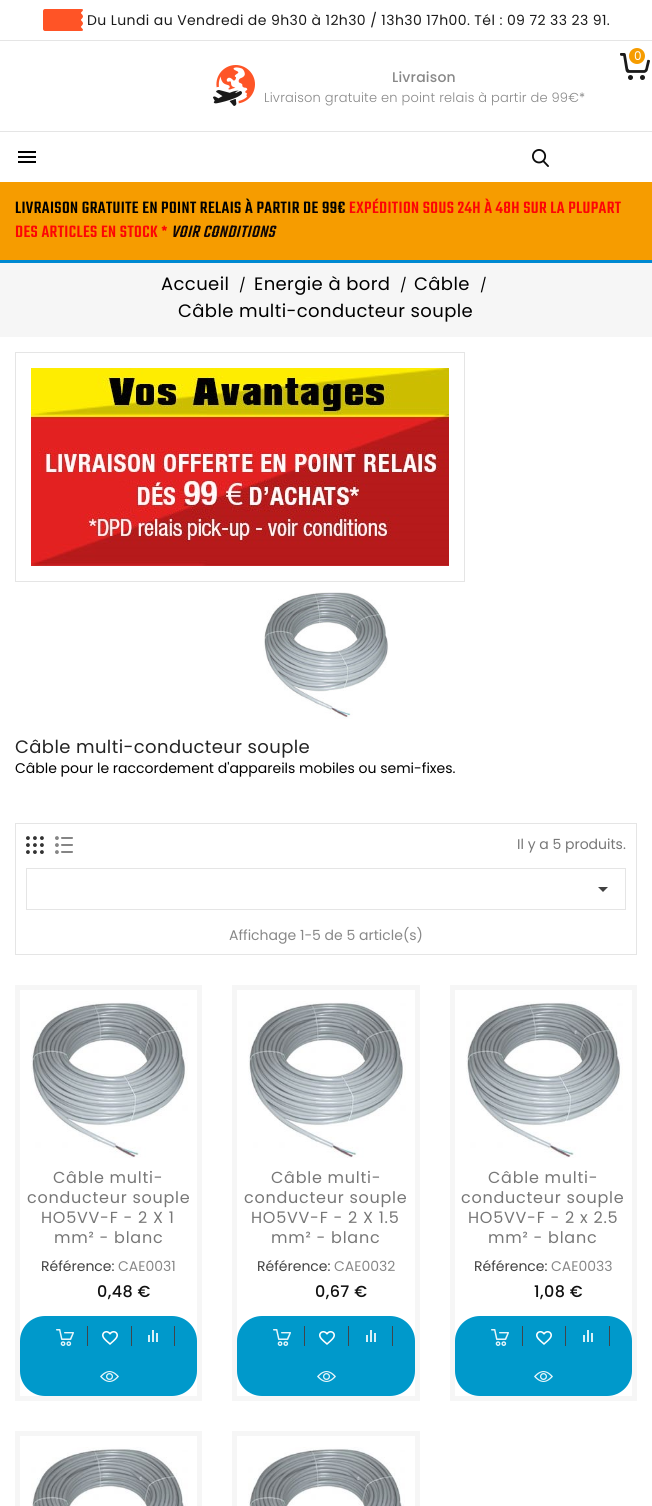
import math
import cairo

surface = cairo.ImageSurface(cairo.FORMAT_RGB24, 652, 1506)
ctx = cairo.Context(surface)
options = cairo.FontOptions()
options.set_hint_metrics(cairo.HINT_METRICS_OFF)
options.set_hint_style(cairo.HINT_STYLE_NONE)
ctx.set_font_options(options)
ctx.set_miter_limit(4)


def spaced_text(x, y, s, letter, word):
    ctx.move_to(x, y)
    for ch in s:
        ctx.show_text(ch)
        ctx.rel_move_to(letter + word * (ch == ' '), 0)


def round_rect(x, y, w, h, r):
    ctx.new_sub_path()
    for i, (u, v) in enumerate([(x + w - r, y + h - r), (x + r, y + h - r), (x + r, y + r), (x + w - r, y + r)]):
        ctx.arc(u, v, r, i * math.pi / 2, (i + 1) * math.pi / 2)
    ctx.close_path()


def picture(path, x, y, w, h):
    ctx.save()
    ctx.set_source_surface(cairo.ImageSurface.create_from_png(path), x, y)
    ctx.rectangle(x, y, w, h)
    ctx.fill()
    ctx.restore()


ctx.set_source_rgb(1, 1, 1)
ctx.paint()
ctx.set_source_rgb(0.898, 0.898, 0.898)
ctx.rectangle(0, 40, 652, 1)
ctx.fill()
picture("img1.png", 43, 9, 40, 22)
ctx.select_font_face("Poppins")
ctx.set_font_size(14)
ctx.set_source_rgb(0.106, 0.106, 0.106)
spaced_text(87, 25, "Du Lundi au Vendredi de 9h30 à 12h30 / 13h30 17h00. Tél : 09 72 33 23 91.", 0.4, 0)
picture("img2.png", 620, 53, 30, 27)
ctx.set_source_rgb(0.961, 0.612, 0)
ctx.arc(637, 56, 8, 0, 2 * math.pi)
ctx.fill()
ctx.set_font_size(12)
ctx.set_source_rgb(1, 1, 1)
ctx.move_to(634, 60)
ctx.show_text("0")
picture("img3.png", 213, 65, 42, 41)
ctx.select_font_face("Poppins Medium")
ctx.set_font_size(14)
ctx.set_source_rgb(0.533, 0.533, 0.533)
spaced_text(392, 82, "Livraison", 0.2, 0)
ctx.select_font_face("Poppins Light")
ctx.set_font_size(13)
spaced_text(264, 102, "Livraison gratuite en point relais à partir de 99€", 0.2, 0)
ctx.set_source_rgb(0.467, 0.467, 0.467)
spaced_text(579, 102, "*", 0.2, 0)
ctx.set_source_rgb(0.898, 0.898, 0.898)
ctx.rectangle(0, 131, 652, 1)
ctx.fill()
picture("img4.png", 18, 151, 18, 12)
picture("img5.png", 532, 149, 17, 18)
ctx.set_source_rgb(0, 0.537, 0.82)
ctx.rectangle(0, 260, 652, 3)
ctx.fill()
ctx.set_source_rgb(0.961, 0.612, 0)
ctx.rectangle(0, 182, 652, 78)
ctx.fill()
ctx.select_font_face("Teko Medium")
ctx.set_font_size(18)
ctx.set_source_rgb(0, 0, 0)
spaced_text(15, 213, "LIVRAISON GRATUITE EN POINT RELAIS À PARTIR DE 99€", 0.4, 0)
ctx.set_source_rgb(0.992, 0.02, 0.02)
spaced_text(349, 213, "EXPÉDITION SOUS 24H À 48H SUR LA PLUPART", 0.4, 0)
spaced_text(15, 237, "DES ARTICLES EN STOCK *", 0.4, 0)
ctx.select_font_face("Teko Medium", cairo.FONT_SLANT_ITALIC)
ctx.set_source_rgb(0.059, 0.027, 0.027)
spaced_text(171, 237, "VOIR CONDITIONS", 0.4, 0)
ctx.set_source_rgb(0.961, 0.961, 0.961)
ctx.rectangle(0, 263, 652, 74)
ctx.fill()
ctx.select_font_face("Poppins")
ctx.set_source_rgb(0, 0, 0)
spaced_text(161, 290, "Accueil", 0.4, 0)
ctx.set_font_size(14)
ctx.move_to(239, 290)
ctx.show_text("/")
ctx.set_font_size(18)
spaced_text(254, 290, "Energie à bord", 0.4, 0)
ctx.set_font_size(14)
ctx.move_to(400, 290)
ctx.show_text("/")
ctx.set_font_size(18)
spaced_text(414, 290, "Câble", 0.4, 0)
ctx.set_font_size(14)
ctx.move_to(480, 290)
ctx.show_text("/")
ctx.set_font_size(18)
spaced_text(178, 317, "Câble multi-conducteur souple", 0.4, 0)
ctx.rectangle(15.5, 352.5, 449, 229)
ctx.set_source_rgb(0.898, 0.898, 0.898)
ctx.set_line_width(1)
ctx.stroke()
picture("img6.png", 31, 368, 418, 198)
picture("img7.png", 263, 592, 126, 127)
ctx.set_source_rgb(0.137, 0.137, 0.137)
spaced_text(15, 753, "Câble multi-conducteur souple", 0.4, 0)
ctx.set_font_size(14)
ctx.set_source_rgb(0, 0, 0)
ctx.move_to(15, 773)
ctx.show_text("Câble pour le raccordement d'appareils mobiles ou semi-fixes.")
ctx.rectangle(15.5, 823.5, 621, 131)
ctx.set_source_rgb(0.898, 0.898, 0.898)
ctx.stroke()
picture("img8.png", 26, 836, 18, 18)
picture("img9.png", 55, 836, 18, 18)
ctx.set_source_rgb(0.467, 0.467, 0.467)
ctx.move_to(517, 849)
ctx.show_text("Il y a 5 produits.")
ctx.rectangle(26.5, 868.5, 599, 41)
ctx.set_source_rgb(0.898, 0.898, 0.898)
ctx.stroke()
ctx.set_source_rgb(0.255, 0.255, 0.255)
ctx.new_path()
ctx.move_to(598, 887)
ctx.line_to(608, 887)
ctx.line_to(603, 892)
ctx.close_path()
ctx.fill()
ctx.set_source_rgb(0.533, 0.533, 0.533)
ctx.move_to(229, 940)
ctx.show_text("Affichage 1-5 de 5 article(s)")
ctx.rectangle(17.5, 987.5, 182, 411)
ctx.set_source_rgb(0.961, 0.961, 0.961)
ctx.set_line_width(5)
ctx.stroke()
picture("img10.png", 31, 1001, 157, 157)
ctx.set_font_size(16)
ctx.set_source_rgb(0.467, 0.467, 0.467)
spaced_text(53, 1183, "Câble multi-", 0.75, 0)
spaced_text(27, 1203, "conducteur souple", 0.75, 0)
spaced_text(41, 1223, "HO5VV-F - 2 X 1", 0.75, 0)
spaced_text(54, 1243, "mm² - blanc", 0.75, 0)
ctx.set_font_size(14)
ctx.set_source_rgb(0.255, 0.255, 0.255)
ctx.move_to(41, 1271)
ctx.show_text("Référence:")
ctx.set_source_rgb(0.533, 0.533, 0.533)
ctx.move_to(118, 1271)
ctx.show_text("CAE0031")
ctx.select_font_face("Poppins Medium")
ctx.set_font_size(16)
ctx.set_source_rgb(0.067, 0.067, 0.067)
spaced_text(97, 1297, "0,48 €", 0.4, 0)
ctx.set_source_rgb(0, 0.6, 0.796)
round_rect(20, 1316, 177, 80, 25)
ctx.fill()
picture("img11.png", 56, 1329, 18, 17)
ctx.set_source_rgb(0.251, 0.275, 0.294)
ctx.rectangle(87, 1326, 1, 20)
ctx.fill()
picture("img12.png", 102, 1331, 16, 14)
ctx.rectangle(131, 1326, 1, 20)
ctx.fill()
picture("img13.png", 148, 1330, 10, 12)
ctx.rectangle(174, 1326, 1, 20)
ctx.fill()
picture("img14.png", 100, 1371, 19, 11)
ctx.rectangle(234.5, 987.5, 183, 411)
ctx.set_source_rgb(0.961, 0.961, 0.961)
ctx.stroke()
picture("img15.png", 248, 1001, 158, 157)
ctx.select_font_face("Poppins")
ctx.set_source_rgb(0.467, 0.467, 0.467)
spaced_text(271, 1183, "Câble multi-", 0.75, 0)
spaced_text(244, 1203, "conducteur souple", 0.75, 0)
spaced_text(251, 1223, "HO5VV-F - 2 X 1.5", 0.75, 0)
spaced_text(271, 1243, "mm² - blanc", 0.75, 0)
ctx.set_font_size(14)
ctx.set_source_rgb(0.255, 0.255, 0.255)
ctx.move_to(257, 1271)
ctx.show_text("Référence:")
ctx.set_source_rgb(0.533, 0.533, 0.533)
ctx.move_to(334, 1271)
ctx.show_text("CAE0032")
ctx.select_font_face("Poppins Medium")
ctx.set_font_size(16)
ctx.set_source_rgb(0.067, 0.067, 0.067)
spaced_text(315, 1297, "0,67 €", 0.4, 0)
ctx.set_source_rgb(0, 0.6, 0.796)
round_rect(237, 1316, 178, 80, 25)
ctx.fill()
picture("img11.png", 273, 1329, 18, 17)
ctx.set_source_rgb(0.251, 0.275, 0.294)
ctx.rectangle(304, 1326, 1, 20)
ctx.fill()
picture("img12.png", 319, 1331, 16, 14)
ctx.rectangle(348, 1326, 1, 20)
ctx.fill()
picture("img13.png", 366, 1330, 10, 12)
ctx.rectangle(392, 1326, 1, 20)
ctx.fill()
picture("img14.png", 317, 1371, 19, 11)
ctx.rectangle(452.5, 987.5, 182, 411)
ctx.set_source_rgb(0.961, 0.961, 0.961)
ctx.stroke()
picture("img16.png", 466, 1001, 157, 157)
ctx.select_font_face("Poppins")
ctx.set_source_rgb(0.467, 0.467, 0.467)
spaced_text(488, 1183, "Câble multi-", 0.75, 0)
spaced_text(461, 1203, "conducteur souple", 0.75, 0)
spaced_text(468, 1223, "HO5VV-F - 2 x 2.5", 0.75, 0)
spaced_text(488, 1243, "mm² - blanc", 0.75, 0)
ctx.set_font_size(14)
ctx.set_source_rgb(0.255, 0.255, 0.255)
ctx.move_to(474, 1271)
ctx.show_text("Référence:")
ctx.set_source_rgb(0.533, 0.533, 0.533)
ctx.move_to(551, 1271)
ctx.show_text("CAE0033")
ctx.select_font_face("Poppins Medium")
ctx.set_font_size(16)
ctx.set_source_rgb(0.067, 0.067, 0.067)
spaced_text(534, 1297, "1,08 €", 0.4, 0)
ctx.set_source_rgb(0, 0.6, 0.796)
round_rect(455, 1316, 177, 80, 25)
ctx.fill()
picture("img11.png", 491, 1329, 18, 17)
ctx.set_source_rgb(0.251, 0.275, 0.294)
ctx.rectangle(522, 1326, 1, 20)
ctx.fill()
picture("img12.png", 536, 1331, 16, 14)
ctx.rectangle(565, 1326, 1, 20)
ctx.fill()
picture("img13.png", 583, 1330, 10, 12)
ctx.rectangle(609, 1326, 1, 20)
ctx.fill()
picture("img14.png", 534, 1371, 19, 11)
ctx.rectangle(17.5, 1433.5, 182, 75)
ctx.set_source_rgb(0.961, 0.961, 0.961)
ctx.stroke()
picture("img17.png", 31, 1447, 157, 59)
ctx.rectangle(234.5, 1433.5, 183, 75)
ctx.stroke()
picture("img18.png", 248, 1447, 157, 59)
surface.write_to_png("page.png")
